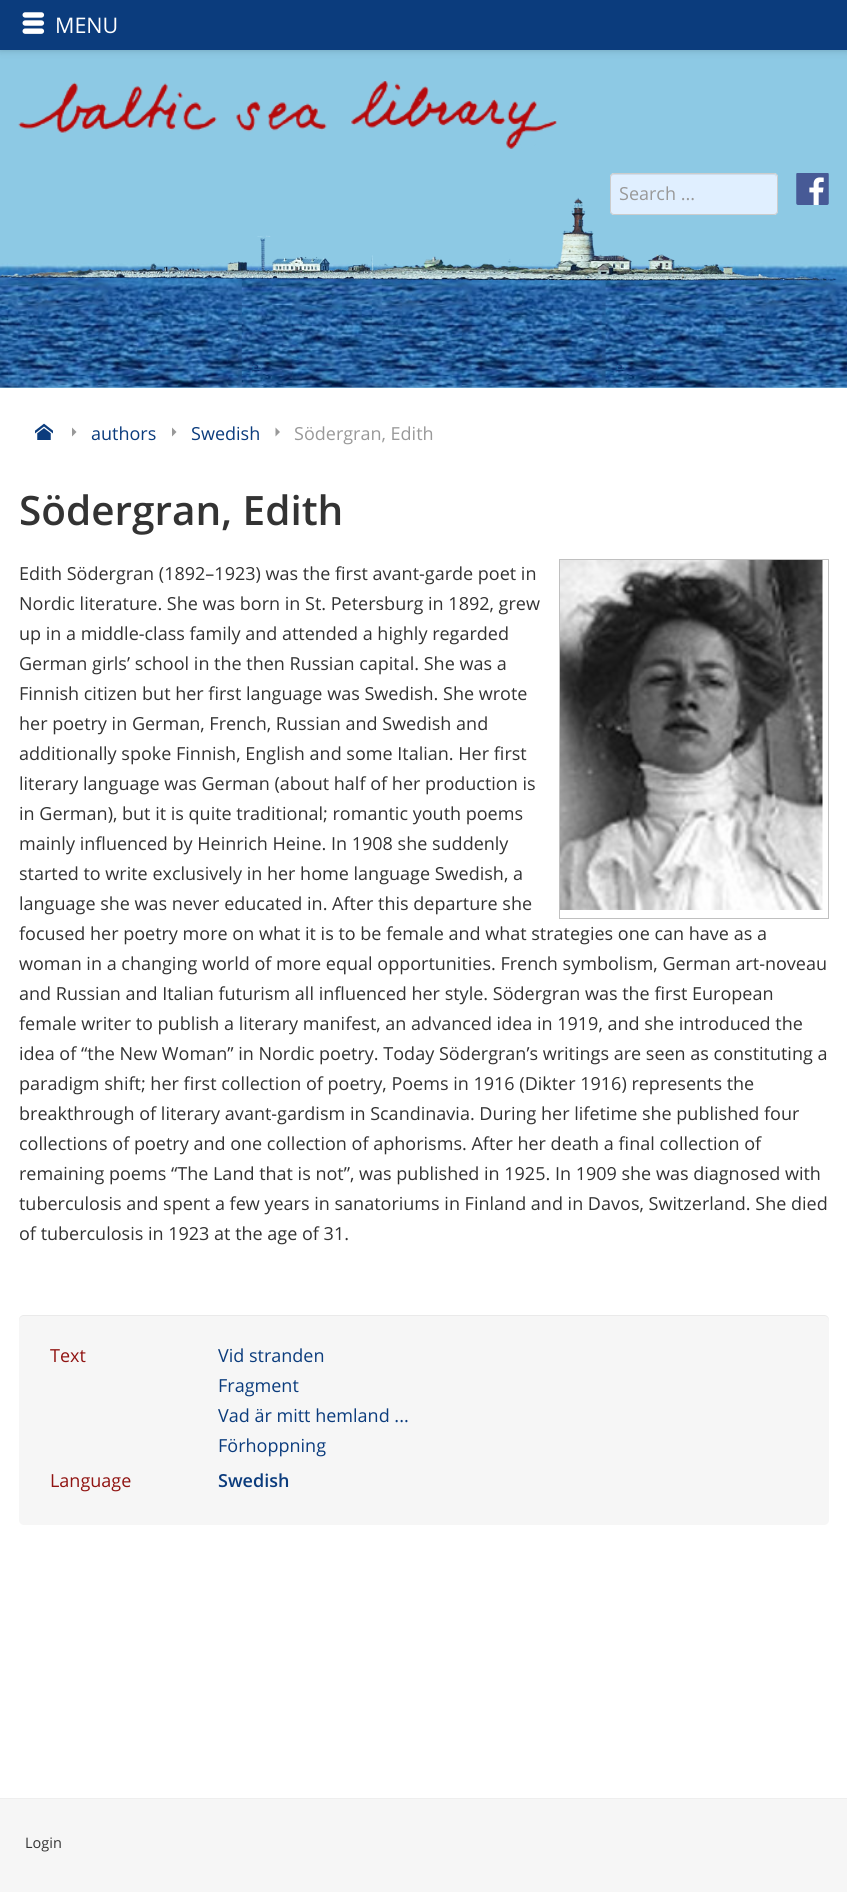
import math
import cairo

surface = cairo.ImageSurface(cairo.FORMAT_RGB24, 847, 1892)
ctx = cairo.Context(surface)
options = cairo.FontOptions()
options.set_hint_metrics(cairo.HINT_METRICS_OFF)
options.set_hint_style(cairo.HINT_STYLE_NONE)
ctx.set_font_options(options)
ctx.set_miter_limit(4)


def round_rect(x, y, w, h, r):
    ctx.new_sub_path()
    for i, (u, v) in enumerate([(x + w - r, y + h - r), (x + r, y + h - r), (x + r, y + r), (x + w - r, y + r)]):
        ctx.arc(u, v, r, i * math.pi / 2, (i + 1) * math.pi / 2)
    ctx.close_path()


def shadow(x, y, w, h, r, blur, alpha):
    ctx.push_group_with_content(cairo.CONTENT_ALPHA)
    ctx.set_operator(cairo.OPERATOR_SOURCE)
    for i in range(15, -16, -2):
        e = blur * i / 6
        if min(w, h) + 2 * e > 0:
            ctx.set_source_rgba(0, 0, 0, alpha * math.erfc((i - 1) / 8.5) / 2)
            round_rect(x - e, y - e, w + 2 * e, h + 2 * e, max(0, min(r + e + blur * .6, min(w, h) / 2 + e)))
            ctx.fill()
    ctx.mask(ctx.pop_group())


def picture(path, x, y, w, h):
    ctx.save()
    ctx.set_source_surface(cairo.ImageSurface.create_from_png(path), x, y)
    ctx.rectangle(x, y, w, h)
    ctx.fill()
    ctx.restore()


ctx.set_source_rgb(1, 1, 1)
ctx.paint()
ctx.set_source_rgb(0.553, 0.788, 0.894)
ctx.rectangle(0, 50, 847, 338)
ctx.fill()
ctx.set_source_rgb(0, 0, 0)
shadow(0, 0, 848, 50, 0, 4, 0.2)
ctx.set_source_rgb(0.043, 0.235, 0.49)
ctx.rectangle(0, 0, 847, 50)
ctx.fill()
picture("img1.png", 22, 12, 23, 22)
ctx.select_font_face("Open Sans")
ctx.set_font_size(21.5)
ctx.set_source_rgb(1, 1, 1)
ctx.move_to(55, 33)
ctx.show_text("MENU")
picture("img5.png", 0, 263, 847, 125)
picture("img2.png", 0, 197, 837, 84)
picture("img3.png", 18, 81, 539, 68)
ctx.set_source_rgb(0.878, 0.937, 1)
round_rect(610, 173, 168, 42, 4)
ctx.fill()
ctx.set_source_rgb(0.812, 0.867, 0.925)
ctx.new_path()
ctx.move_to(614, 175)
ctx.line_to(774, 175)
ctx.curve_to(775, 175, 776, 176, 776, 178)
ctx.curve_to(776, 176, 776, 174, 774, 174)
ctx.line_to(614, 174)
ctx.curve_to(611, 174, 611, 176, 611, 178)
ctx.curve_to(611, 176, 612, 175, 614, 175)
ctx.close_path()
ctx.fill()
round_rect(610.5, 173.5, 167, 41, 3.5)
ctx.set_source_rgb(0.8, 0.8, 0.8)
ctx.set_line_width(1)
ctx.stroke()
ctx.set_font_size(18)
ctx.set_source_rgb(0.6, 0.6, 0.6)
ctx.move_to(619, 200)
ctx.show_text("Search ...")
picture("img4.png", 796, 173, 33, 32)
picture("img6.png", 35, 423, 18, 17)
ctx.new_path()
ctx.move_to(72, 436.5)
ctx.line_to(72, 427.5)
ctx.line_to(76.5, 432)
ctx.close_path()
ctx.fill()
ctx.set_source_rgb(0.043, 0.235, 0.49)
ctx.move_to(91, 440)
ctx.show_text("authors")
ctx.set_source_rgb(0.6, 0.6, 0.6)
ctx.new_path()
ctx.move_to(172, 436.5)
ctx.line_to(172, 427.5)
ctx.line_to(176.5, 432)
ctx.close_path()
ctx.fill()
ctx.set_source_rgb(0.043, 0.235, 0.49)
ctx.move_to(191, 440)
ctx.show_text("Swedish")
ctx.set_source_rgb(0.6, 0.6, 0.6)
ctx.new_path()
ctx.move_to(275.5, 436.5)
ctx.line_to(275.5, 427.5)
ctx.line_to(280, 432)
ctx.close_path()
ctx.fill()
ctx.move_to(294, 440)
ctx.show_text("Södergran, Edith")
ctx.select_font_face("Open Sans SemiBold")
ctx.set_font_size(40.5)
ctx.set_source_rgb(0.2, 0.2, 0.2)
ctx.move_to(19, 525)
ctx.show_text("Södergran, Edith")
ctx.rectangle(559.5, 559.5, 269, 359)
ctx.set_source_rgb(0.753, 0.753, 0.753)
ctx.stroke()
picture("img7.png", 560, 560, 263, 350)
ctx.select_font_face("Open Sans")
ctx.set_font_size(18)
ctx.set_source_rgb(0.2, 0.2, 0.2)
ctx.move_to(19, 580)
ctx.show_text("Edith Södergran (1892–1923) was the first avant-garde poet in")
ctx.move_to(19, 610)
ctx.show_text("Nordic literature. She was born in St. Petersburg in 1892, grew")
ctx.move_to(19, 640)
ctx.show_text("up in a middle-class family and attended a highly regarded")
ctx.move_to(19, 670)
ctx.show_text("German girls’ school in the then Russian capital. She was a")
ctx.move_to(19, 700)
ctx.show_text("Finnish citizen but her first language was Swedish. She wrote")
ctx.move_to(19, 730)
ctx.show_text("her poetry in German, French, Russian and Swedish and")
ctx.move_to(19, 760)
ctx.show_text("additionally spoke Finnish, English and some Italian. Her first")
ctx.move_to(19, 790)
ctx.show_text("literary language was German (about half of her production is")
ctx.move_to(19, 820)
ctx.show_text("in German), but it is quite traditional; romantic youth poems")
ctx.move_to(19, 850)
ctx.show_text("mainly influenced by Heinrich Heine. In 1908 she suddenly")
ctx.move_to(19, 880)
ctx.show_text("started to write exclusively in her home language Swedish, a")
ctx.move_to(19, 910)
ctx.show_text("language she was never educated in. After this departure she")
ctx.move_to(19, 940)
ctx.show_text("focused her poetry more on what it is to be female and what strategies one can have as a")
ctx.move_to(19, 970)
ctx.show_text("woman in a changing world of more equal opportunities. French symbolism, German art-noveau")
ctx.move_to(19, 1000)
ctx.show_text("and Russian and Italian futurism all influenced her style. Södergran was the first European")
ctx.move_to(19, 1030)
ctx.show_text("female writer to publish a literary manifest, an advanced idea in 1919, and she introduced the")
ctx.move_to(19, 1060)
ctx.show_text("idea of “the New Woman” in Nordic poetry. Today Södergran’s writings are seen as constituting a")
ctx.move_to(19, 1090)
ctx.show_text("paradigm shift; her first collection of poetry, Poems in 1916 (Dikter 1916) represents the")
ctx.move_to(19, 1120)
ctx.show_text("breakthrough of literary avant-gardism in Scandinavia. During her lifetime she published four")
ctx.move_to(19, 1150)
ctx.show_text("collections of poetry and one collection of aphorisms. After her death a final collection of")
ctx.move_to(19, 1180)
ctx.show_text("remaining poems “The Land that is not”, was published in 1925. In 1909 she was diagnosed with")
ctx.move_to(19, 1210)
ctx.show_text("tuberculosis and spent a few years in sanatoriums in Finland and in Davos, Switzerland. She died")
ctx.move_to(19, 1240)
ctx.show_text("of tuberculosis in 1923 at the age of 31.")
ctx.set_source_rgb(0.961, 0.961, 0.961)
round_rect(19, 1315, 810, 210, 5)
ctx.fill()
ctx.set_source_rgba(0, 0, 0, 0.05)
ctx.new_path()
ctx.move_to(24, 1316)
ctx.line_to(824, 1316)
ctx.curve_to(827, 1316, 829, 1318, 829, 1321)
ctx.line_to(829, 1320)
ctx.curve_to(829, 1317, 827, 1315, 824, 1315)
ctx.line_to(24, 1315)
ctx.curve_to(21, 1315, 19, 1317, 19, 1320)
ctx.line_to(19, 1321)
ctx.curve_to(19, 1318, 21, 1316, 24, 1316)
ctx.close_path()
ctx.fill()
ctx.set_source_rgb(0.565, 0.078, 0.067)
ctx.move_to(50, 1362)
ctx.show_text("Text")
ctx.set_source_rgb(0.043, 0.235, 0.49)
ctx.move_to(218, 1362)
ctx.show_text("Vid stranden")
ctx.move_to(218, 1392)
ctx.show_text("Fragment")
ctx.move_to(218, 1422)
ctx.show_text("Vad är mitt hemland ...")
ctx.move_to(218, 1452)
ctx.show_text("Förhoppning")
ctx.set_source_rgb(0.565, 0.078, 0.067)
ctx.move_to(50, 1487)
ctx.show_text("Language")
ctx.select_font_face("Open Sans SemiBold")
ctx.set_source_rgb(0.043, 0.235, 0.49)
ctx.move_to(218, 1487)
ctx.show_text("Swedish")
ctx.set_source_rgb(0.961, 0.961, 0.961)
ctx.rectangle(0, 1799, 847, 93)
ctx.fill()
ctx.set_source_rgb(0.933, 0.933, 0.933)
ctx.rectangle(0, 1798, 847, 1)
ctx.fill()
ctx.select_font_face("Open Sans")
ctx.set_font_size(14.5)
ctx.set_source_rgb(0.2, 0.2, 0.2)
ctx.move_to(25, 1848)
ctx.show_text("Login")
surface.write_to_png("page.png")
